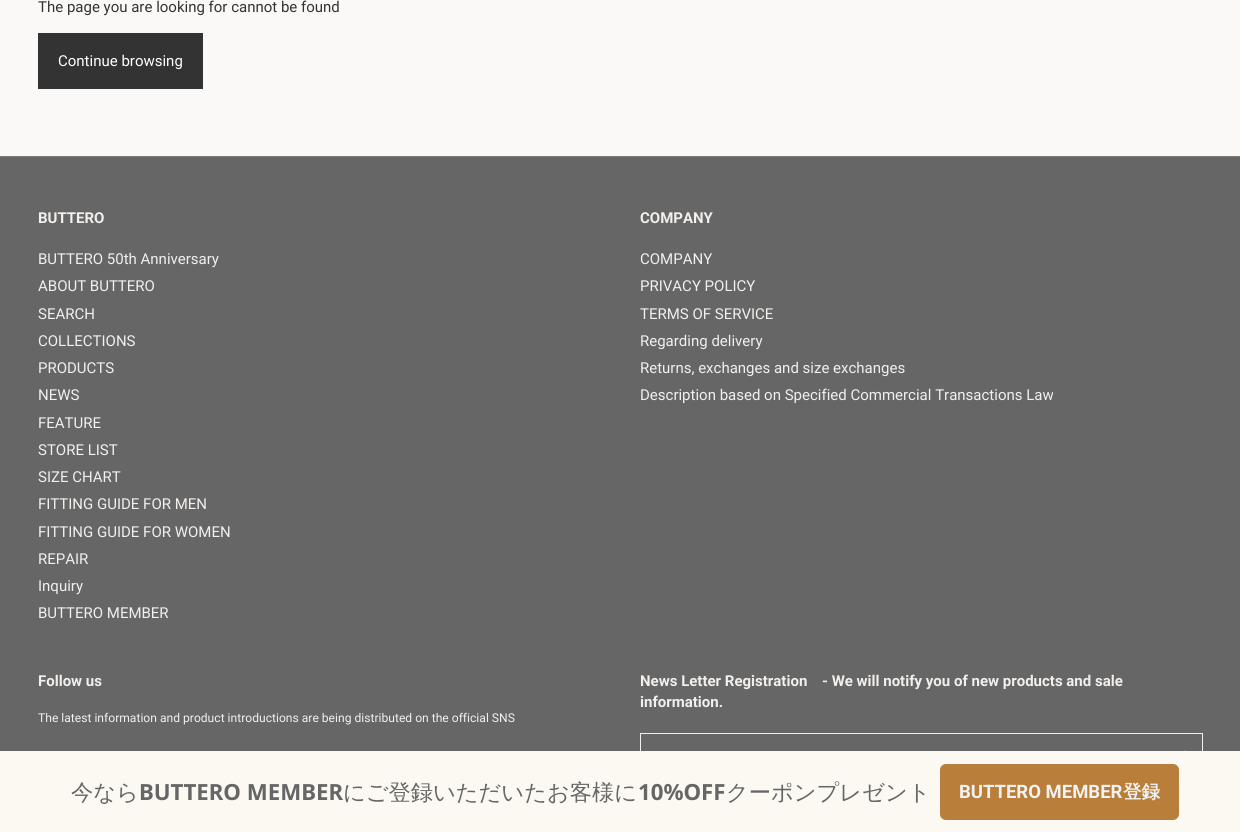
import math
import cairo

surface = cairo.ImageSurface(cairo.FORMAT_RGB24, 1240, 832)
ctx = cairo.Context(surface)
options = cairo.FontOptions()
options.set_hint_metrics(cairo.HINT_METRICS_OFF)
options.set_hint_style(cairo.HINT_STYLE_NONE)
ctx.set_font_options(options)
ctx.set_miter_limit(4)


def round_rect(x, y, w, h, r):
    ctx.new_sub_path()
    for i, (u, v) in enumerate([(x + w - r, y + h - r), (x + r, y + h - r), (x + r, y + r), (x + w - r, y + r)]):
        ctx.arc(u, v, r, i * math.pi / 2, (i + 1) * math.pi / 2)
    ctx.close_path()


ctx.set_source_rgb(0.984, 0.976, 0.965)
ctx.paint()
ctx.select_font_face("Roboto")
ctx.set_font_size(15)
ctx.set_source_rgb(0.2, 0.2, 0.2)
ctx.move_to(38, 12)
ctx.show_text("The page you are looking for cannot be found")
ctx.rectangle(38, 33, 165, 56)
ctx.fill()
ctx.set_source_rgb(1, 1, 1)
ctx.move_to(58, 66)
ctx.show_text("Continue browsing")
ctx.set_source_rgb(0.4, 0.4, 0.4)
ctx.rectangle(0, 157, 1240, 594)
ctx.fill()
ctx.set_source_rgb(0.482, 0.482, 0.478)
ctx.rectangle(0, 156, 1240, 1)
ctx.fill()
ctx.select_font_face("Roboto", cairo.FONT_SLANT_NORMAL, cairo.FONT_WEIGHT_BOLD)
ctx.set_source_rgb(0.949, 0.937, 0.925)
ctx.move_to(38, 223)
ctx.show_text("BUTTERO")
ctx.select_font_face("Roboto")
ctx.move_to(38, 264)
ctx.show_text("BUTTERO 50th Anniversary")
ctx.move_to(38, 291)
ctx.show_text("ABOUT BUTTERO")
ctx.move_to(38, 319)
ctx.show_text("SEARCH")
ctx.move_to(38, 346)
ctx.show_text("COLLECTIONS")
ctx.move_to(38, 373)
ctx.show_text("PRODUCTS")
ctx.move_to(38, 400)
ctx.show_text("NEWS")
ctx.move_to(38, 428)
ctx.show_text("FEATURE")
ctx.move_to(38, 455)
ctx.show_text("STORE LIST")
ctx.move_to(38, 482)
ctx.show_text("SIZE CHART")
ctx.move_to(38, 509)
ctx.show_text("FITTING GUIDE FOR MEN")
ctx.move_to(38, 537)
ctx.show_text("FITTING GUIDE FOR WOMEN")
ctx.move_to(38, 564)
ctx.show_text("REPAIR")
ctx.move_to(38, 591)
ctx.show_text("Inquiry")
ctx.move_to(38, 618)
ctx.show_text("BUTTERO MEMBER")
ctx.select_font_face("Roboto", cairo.FONT_SLANT_NORMAL, cairo.FONT_WEIGHT_BOLD)
ctx.move_to(640, 223)
ctx.show_text("COMPANY")
ctx.select_font_face("Roboto")
ctx.move_to(640, 264)
ctx.show_text("COMPANY")
ctx.move_to(640, 291)
ctx.show_text("PRIVACY POLICY")
ctx.move_to(640, 319)
ctx.show_text("TERMS OF SERVICE")
ctx.move_to(640, 346)
ctx.show_text("Regarding delivery")
ctx.move_to(640, 373)
ctx.show_text("Returns, exchanges and size exchanges")
ctx.move_to(640, 400)
ctx.show_text("Description based on Specified Commercial Transactions Law")
ctx.select_font_face("Roboto", cairo.FONT_SLANT_NORMAL, cairo.FONT_WEIGHT_BOLD)
ctx.move_to(38, 686)
ctx.show_text("Follow us")
ctx.select_font_face("Roboto")
ctx.set_font_size(12.1)
ctx.move_to(38, 722)
ctx.show_text("The latest information and product introductions are being distributed on the official SNS")
ctx.select_font_face("Roboto", cairo.FONT_SLANT_NORMAL, cairo.FONT_WEIGHT_BOLD)
ctx.set_font_size(15)
ctx.move_to(640, 686)
ctx.show_text("News Letter Registration")
ctx.move_to(822, 686)
ctx.show_text("- We will notify you of new products and sale")
ctx.move_to(640, 707)
ctx.show_text("information.")
ctx.rectangle(640.5, 733.5, 562, 61)
ctx.set_line_width(1)
ctx.stroke()
ctx.new_path()
ctx.move_to(1185.5, 751.5)
ctx.line_to(1169.5, 767.5)
ctx.move_to(1185.5, 751.5)
ctx.line_to(1175, 780.5)
ctx.line_to(1169.5, 767.5)
ctx.line_to(1156.5, 761.5)
ctx.close_path()
ctx.set_source_rgb(0.741, 0.733, 0.725)
ctx.set_line_width(1.9)
ctx.set_line_cap(cairo.LINE_CAP_ROUND)
ctx.set_line_join(cairo.LINE_JOIN_ROUND)
ctx.stroke()
ctx.set_source_rgb(0.984, 0.973, 0.949)
ctx.rectangle(0, 751, 1240, 81)
ctx.fill()
ctx.select_font_face("WenQuanYi Zen Hei Medium")
ctx.set_font_size(22.25)
ctx.set_source_rgb(0.4, 0.4, 0.4)
ctx.move_to(71, 800)
ctx.show_text("今なら")
ctx.select_font_face("Noto Sans", cairo.FONT_SLANT_NORMAL, cairo.FONT_WEIGHT_BOLD)
ctx.move_to(139, 800)
ctx.show_text("BUTTERO MEMBER")
ctx.select_font_face("WenQuanYi Zen Hei Medium")
ctx.move_to(343, 800)
ctx.show_text("にご登録いただいたお客様に")
ctx.select_font_face("Noto Sans", cairo.FONT_SLANT_NORMAL, cairo.FONT_WEIGHT_BOLD)
ctx.move_to(638, 800)
ctx.show_text("10%OFF")
ctx.select_font_face("WenQuanYi Zen Hei Medium")
ctx.move_to(726, 800)
ctx.show_text("クーポンプレゼント")
ctx.set_source_rgb(0.722, 0.494, 0.227)
round_rect(940, 764, 239, 56, 6)
ctx.fill()
ctx.select_font_face("Roboto", cairo.FONT_SLANT_NORMAL, cairo.FONT_WEIGHT_BOLD)
ctx.set_font_size(18.5)
ctx.set_source_rgb(0.949, 0.949, 0.949)
ctx.move_to(959, 798)
ctx.show_text("BUTTERO MEMBER")
ctx.select_font_face("WenQuanYi Zen Hei", cairo.FONT_SLANT_NORMAL, cairo.FONT_WEIGHT_BOLD)
ctx.move_to(1123, 798)
ctx.show_text("登録")
surface.write_to_png("page.png")
